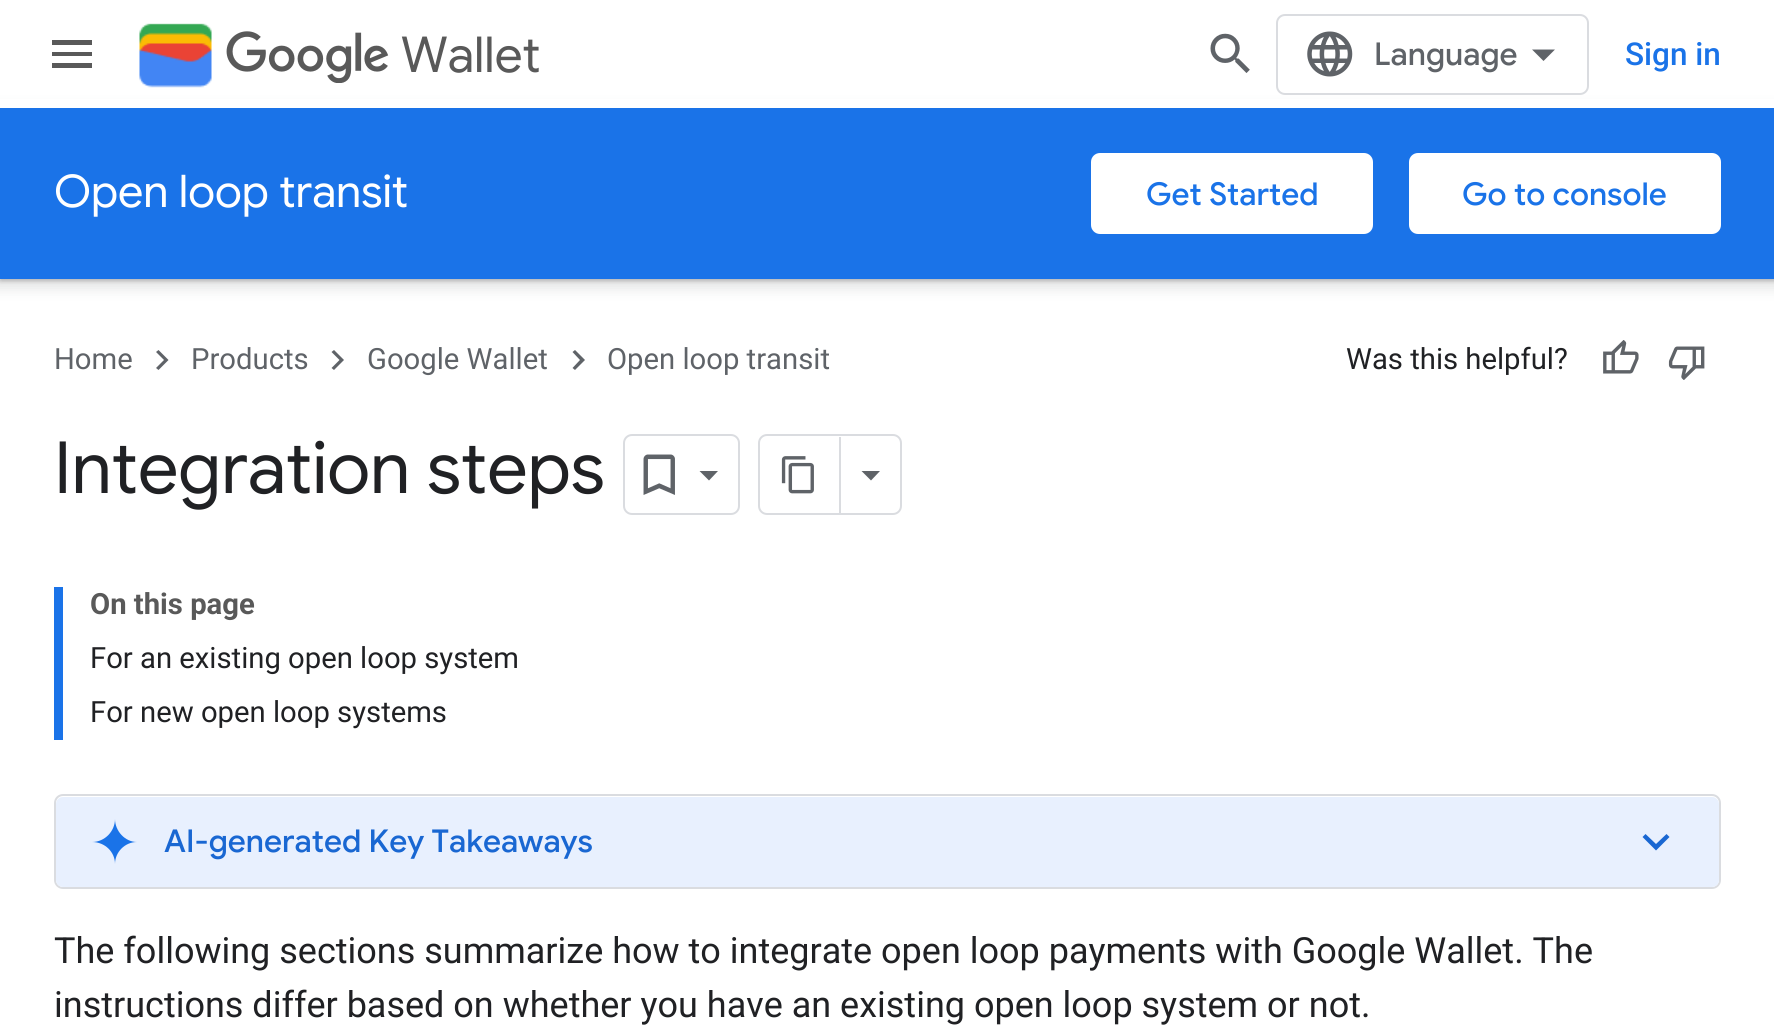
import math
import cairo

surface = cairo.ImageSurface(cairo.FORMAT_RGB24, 1774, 1036)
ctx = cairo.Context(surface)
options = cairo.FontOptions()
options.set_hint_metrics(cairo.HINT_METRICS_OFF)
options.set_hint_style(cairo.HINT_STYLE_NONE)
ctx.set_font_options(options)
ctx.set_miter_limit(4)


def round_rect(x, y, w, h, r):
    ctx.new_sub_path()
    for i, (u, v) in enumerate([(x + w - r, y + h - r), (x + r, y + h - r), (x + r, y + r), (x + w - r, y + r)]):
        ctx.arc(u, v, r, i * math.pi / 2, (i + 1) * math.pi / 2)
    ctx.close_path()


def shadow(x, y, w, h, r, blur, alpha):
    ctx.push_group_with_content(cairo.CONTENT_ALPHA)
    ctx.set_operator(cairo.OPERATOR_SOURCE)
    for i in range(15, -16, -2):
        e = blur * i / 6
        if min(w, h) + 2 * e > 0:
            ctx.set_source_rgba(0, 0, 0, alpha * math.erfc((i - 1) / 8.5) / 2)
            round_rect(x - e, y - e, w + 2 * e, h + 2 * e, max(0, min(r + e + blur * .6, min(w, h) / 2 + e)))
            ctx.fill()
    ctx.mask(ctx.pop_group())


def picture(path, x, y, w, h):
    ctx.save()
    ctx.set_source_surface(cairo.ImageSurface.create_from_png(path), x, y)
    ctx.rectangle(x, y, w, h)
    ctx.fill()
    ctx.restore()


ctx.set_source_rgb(1, 1, 1)
ctx.paint()
ctx.set_source_rgb(0.235, 0.251, 0.263)
shadow(-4, 108, 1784, 180, 0, 7, 0.15)
shadow(0, 110, 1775, 171, 0, 2, 0.3)
ctx.set_source_rgb(1, 1, 1)
ctx.rectangle(0, 99, 1774, 9)
ctx.fill()
ctx.set_source_rgb(0.349, 0.349, 0.349)
ctx.new_path()
ctx.move_to(52, 40)
ctx.line_to(92, 40)
ctx.line_to(92, 45)
ctx.line_to(52, 45)
ctx.close_path()
ctx.move_to(52, 56)
ctx.line_to(52, 52)
ctx.line_to(92, 52)
ctx.line_to(92, 56)
ctx.close_path()
ctx.move_to(52, 68)
ctx.line_to(52, 63)
ctx.line_to(92, 63)
ctx.line_to(92, 68)
ctx.close_path()
ctx.fill()
picture("img1.png", 139, 23, 73, 65)
picture("img2.png", 226, 31, 163, 52)
ctx.select_font_face("Google Sans")
ctx.set_font_size(49.5)
ctx.move_to(401, 72)
ctx.show_text("Wallet")
picture("img3.png", 1210, 33, 40, 40)
round_rect(1277, 15, 311, 79, 8)
ctx.set_source_rgb(0.855, 0.863, 0.878)
ctx.stroke()
picture("img4.png", 1307, 31, 46, 46)
ctx.select_font_face("Google Sans Medium")
ctx.set_font_size(31.5)
ctx.set_source_rgb(0.373, 0.388, 0.408)
ctx.move_to(1374, 65)
ctx.show_text("Language")
ctx.new_path()
ctx.move_to(1543.5, 61)
ctx.line_to(1532, 49.5)
ctx.line_to(1555, 49.5)
ctx.close_path()
ctx.fill()
ctx.select_font_face("Roboto Medium")
ctx.set_source_rgb(0.102, 0.451, 0.91)
ctx.move_to(1625, 65)
ctx.show_text("Sign in")
ctx.rectangle(0, 108, 1774, 171)
ctx.fill()
ctx.select_font_face("Google Sans")
ctx.set_font_size(45)
ctx.set_source_rgb(1, 1, 1)
ctx.move_to(54, 207)
ctx.show_text("Open loop transit")
round_rect(1091, 153, 282, 81, 9)
ctx.fill()
ctx.select_font_face("Google Sans Medium")
ctx.set_font_size(31.5)
ctx.set_source_rgb(0.102, 0.451, 0.91)
ctx.move_to(1146, 205)
ctx.show_text("Get Started")
ctx.set_source_rgb(1, 1, 1)
round_rect(1409, 153, 312, 81, 9)
ctx.fill()
ctx.set_source_rgb(0.102, 0.451, 0.91)
ctx.move_to(1462, 205)
ctx.show_text("Go to console")
ctx.select_font_face("Roboto")
ctx.set_font_size(29.25)
ctx.set_source_rgb(0.373, 0.388, 0.408)
ctx.move_to(54, 369)
ctx.show_text("Home")
ctx.new_path()
ctx.move_to(158.5, 350)
ctx.line_to(168.5, 360)
ctx.line_to(158.5, 370)
ctx.line_to(156, 368)
ctx.line_to(164, 360)
ctx.line_to(156, 352)
ctx.close_path()
ctx.fill()
ctx.move_to(191, 369)
ctx.show_text("Products")
ctx.new_path()
ctx.move_to(334, 350)
ctx.line_to(344, 360)
ctx.line_to(334, 370)
ctx.line_to(331.5, 368)
ctx.line_to(339.5, 360)
ctx.line_to(331.5, 352)
ctx.close_path()
ctx.fill()
ctx.move_to(367, 369)
ctx.show_text("Google Wallet")
ctx.new_path()
ctx.move_to(575, 350)
ctx.line_to(585, 360)
ctx.line_to(575, 370)
ctx.line_to(572.5, 368)
ctx.line_to(580, 360)
ctx.line_to(572.5, 352)
ctx.close_path()
ctx.fill()
ctx.move_to(607, 369)
ctx.show_text("Open loop transit")
ctx.set_source_rgb(0.125, 0.129, 0.141)
ctx.move_to(1346, 369)
ctx.show_text("Was this helpful?")
picture("img5.png", 1603, 340, 36, 34)
picture("img6.png", 1668, 346, 37, 34)
ctx.select_font_face("Google Sans")
ctx.set_font_size(72)
ctx.move_to(54, 493)
ctx.show_text("Integration steps")
round_rect(624, 435, 115, 79, 8)
ctx.set_source_rgb(0.855, 0.863, 0.878)
ctx.stroke()
picture("img7.png", 643, 454, 32, 41)
ctx.set_source_rgb(0.373, 0.388, 0.408)
ctx.new_path()
ctx.move_to(699.5, 471)
ctx.line_to(718, 471)
ctx.line_to(709, 480.5)
ctx.close_path()
ctx.fill()
round_rect(759, 435, 142, 79, 8)
ctx.set_source_rgb(0.855, 0.863, 0.878)
ctx.stroke()
ctx.rectangle(839, 437, 2, 76)
ctx.fill()
picture("img8.png", 781, 456, 33, 38)
ctx.set_source_rgb(0.373, 0.388, 0.408)
ctx.new_path()
ctx.move_to(861.5, 471)
ctx.line_to(880, 471)
ctx.line_to(871, 480.5)
ctx.close_path()
ctx.fill()
ctx.set_source_rgb(0.102, 0.451, 0.91)
ctx.rectangle(54, 587, 9, 153)
ctx.fill()
ctx.select_font_face("Roboto", cairo.FONT_SLANT_NORMAL, cairo.FONT_WEIGHT_BOLD)
ctx.set_font_size(29.25)
ctx.set_source_rgb(0.349, 0.349, 0.349)
ctx.move_to(90, 614)
ctx.show_text("On this page")
ctx.select_font_face("Roboto")
ctx.set_source_rgb(0.125, 0.129, 0.141)
ctx.move_to(90, 668)
ctx.show_text("For an existing open loop system")
ctx.move_to(90, 722)
ctx.show_text("For new open loop systems")
round_rect(55, 795, 1665, 93, 8)
ctx.set_source_rgb(0.855, 0.863, 0.878)
ctx.stroke()
ctx.set_source_rgb(0.91, 0.941, 0.996)
round_rect(56, 797, 1663, 90, 7)
ctx.fill()
ctx.set_source_rgb(0.102, 0.451, 0.91)
ctx.new_path()
ctx.move_to(115, 864)
ctx.curve_to(115, 852, 105, 842, 92, 842)
ctx.curve_to(105, 842, 115, 831, 115, 819)
ctx.curve_to(115, 831, 125, 842, 137, 842)
ctx.curve_to(125, 842, 115, 852, 115, 864)
ctx.close_path()
ctx.fill()
ctx.select_font_face("Google Sans Medium")
ctx.set_font_size(31.5)
ctx.set_source_rgb(0.098, 0.404, 0.824)
ctx.move_to(164, 852)
ctx.show_text("AI-generated Key Takeaways")
ctx.new_path()
ctx.move_to(1666.5, 834)
ctx.line_to(1669.5, 837)
ctx.line_to(1656, 850.5)
ctx.line_to(1642.5, 837)
ctx.line_to(1645.5, 834)
ctx.line_to(1656, 844)
ctx.close_path()
ctx.fill()
ctx.select_font_face("Roboto")
ctx.set_font_size(36)
ctx.set_source_rgb(0.125, 0.129, 0.141)
ctx.move_to(54, 963)
ctx.show_text("The following sections summarize how to integrate open loop payments with Google Wallet. The")
ctx.move_to(54, 1017)
ctx.show_text("instructions differ based on whether you have an existing open loop system or not.")
surface.write_to_png("page.png")
